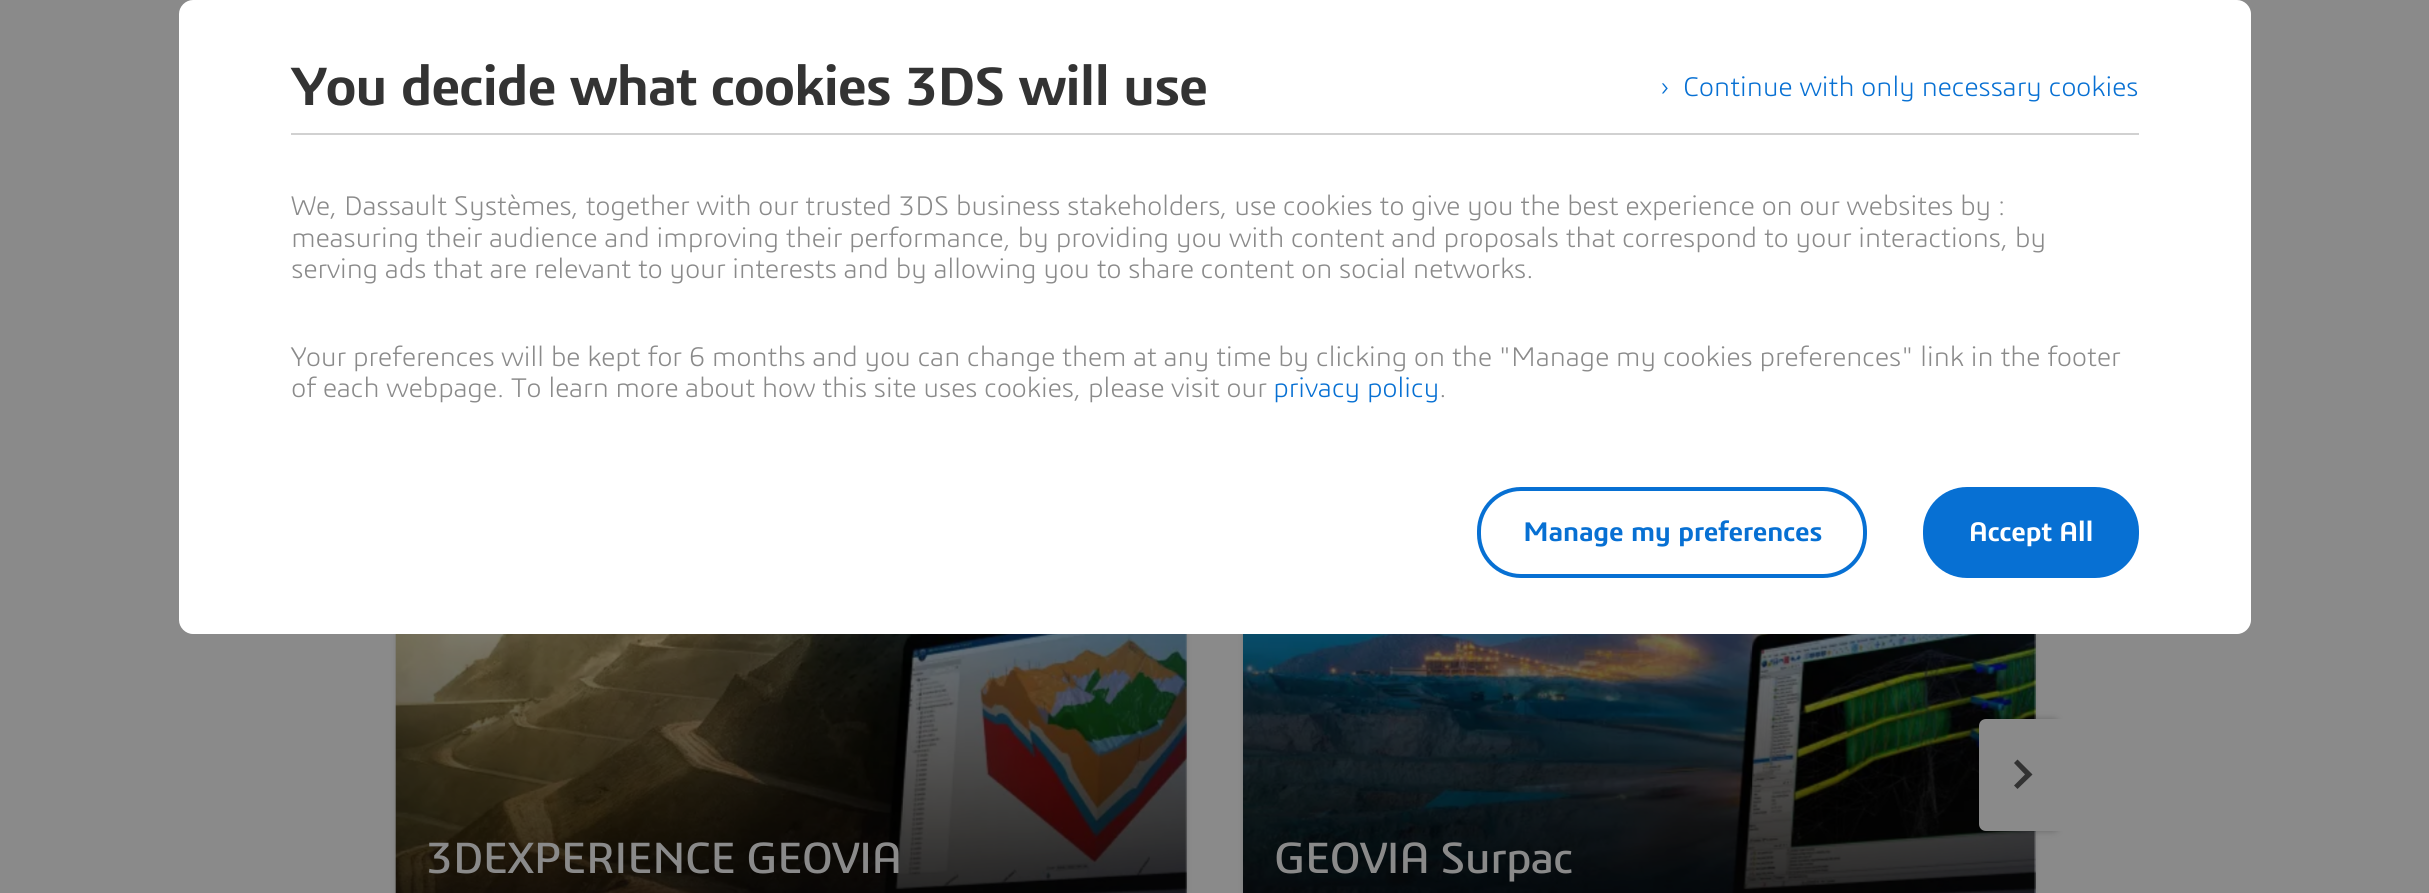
import math
import cairo

surface = cairo.ImageSurface(cairo.FORMAT_RGB24, 2429, 893)
ctx = cairo.Context(surface)
options = cairo.FontOptions()
options.set_hint_metrics(cairo.HINT_METRICS_OFF)
options.set_hint_style(cairo.HINT_STYLE_NONE)
ctx.set_font_options(options)
ctx.set_miter_limit(4)


def spaced_text(x, y, s, letter, word):
    ctx.move_to(x, y)
    for ch in s:
        ctx.show_text(ch)
        ctx.rel_move_to(letter + word * (ch == ' '), 0)


def round_rect(x, y, w, h, r):
    ctx.new_sub_path()
    for i, (u, v) in enumerate([(x + w - r, y + h - r), (x + r, y + h - r), (x + r, y + r), (x + w - r, y + r)]):
        ctx.arc(u, v, r, i * math.pi / 2, (i + 1) * math.pi / 2)
    ctx.close_path()


def shadow(x, y, w, h, r, blur, alpha):
    ctx.push_group_with_content(cairo.CONTENT_ALPHA)
    ctx.set_operator(cairo.OPERATOR_SOURCE)
    for i in range(15, -16, -2):
        e = blur * i / 6
        if min(w, h) + 2 * e > 0:
            ctx.set_source_rgba(0, 0, 0, alpha * math.erfc((i - 1) / 8.5) / 2)
            round_rect(x - e, y - e, w + 2 * e, h + 2 * e, max(0, min(r + e + blur * .6, min(w, h) / 2 + e)))
            ctx.fill()
    ctx.mask(ctx.pop_group())


def picture(path, x, y, w, h):
    ctx.save()
    ctx.set_source_surface(cairo.ImageSurface.create_from_png(path), x, y)
    ctx.rectangle(x, y, w, h)
    ctx.fill()
    ctx.restore()


ctx.set_source_rgb(0.541, 0.541, 0.541)
ctx.paint()
ctx.set_source_rgb(1, 1, 1)
ctx.new_path()
ctx.move_to(193, 0)
ctx.line_to(2237, 0)
ctx.curve_to(2244.5, 0, 2251, 6.5, 2251, 14)
ctx.line_to(2251, 460)
ctx.line_to(179, 460)
ctx.line_to(179, 14)
ctx.curve_to(179, 6.5, 185.5, 0, 193, 0)
ctx.close_path()
ctx.fill()
ctx.set_source_rgb(0.82, 0.82, 0.82)
ctx.rectangle(291, 133, 1848, 2)
ctx.fill()
ctx.select_font_face("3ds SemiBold")
ctx.set_font_size(56)
ctx.set_source_rgb(0.2, 0.2, 0.2)
spaced_text(291, 105, "You decide what cookies 3DS will use", -1.4, 0)
ctx.select_font_face("3ds Light")
ctx.set_font_size(28)
ctx.set_source_rgb(0.031, 0.439, 0.827)
spaced_text(1660, 96, "›", -0.35, 0)
spaced_text(1683, 96, "Continue with only necessary cookies", -0.35, 0)
ctx.set_source_rgb(0.541, 0.541, 0.541)
spaced_text(291, 215, "We, Dassault Systèmes, together with our trusted 3DS business stakeholders, use cookies to give you the best experience on our websites by :", -0.35, 0)
spaced_text(291, 247, "measuring their audience and improving their performance, by providing you with content and proposals that correspond to your interactions, by", -0.35, 0)
spaced_text(291, 278, "serving ads that are relevant to your interests and by allowing you to share content on social networks.", -0.35, 0)
spaced_text(291, 366, "Your preferences will be kept for 6 months and you can change them at any time by clicking on the \"Manage my cookies preferences\" link in the footer", -0.35, 0)
spaced_text(291, 397, "of each webpage. To learn more about how this site uses cookies, please visit our", -0.35, 0)
ctx.set_source_rgb(0.031, 0.439, 0.827)
spaced_text(1273, 397, "privacy policy", -0.35, 0)
ctx.set_source_rgb(0.541, 0.541, 0.541)
spaced_text(1439, 397, ".", -0.35, 0)
ctx.set_source_rgb(0, 0, 0)
shadow(396, 586, 791, 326, 11, 2.5, 0.12)
shadow(1243, 586, 792, 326, 11, 2.5, 0.12)
ctx.set_source_rgb(1, 1, 1)
ctx.new_path()
ctx.move_to(179, 460)
ctx.line_to(2251, 460)
ctx.line_to(2251, 620)
ctx.curve_to(2251, 627.5, 2244.5, 634, 2237, 634)
ctx.line_to(193, 634)
ctx.curve_to(185.5, 634, 179, 627.5, 179, 620)
ctx.close_path()
ctx.fill()
round_rect(1479, 489, 386, 87, 42)
ctx.set_source_rgb(0.031, 0.439, 0.827)
ctx.set_line_width(4)
ctx.stroke()
ctx.select_font_face("3ds SemiBold")
spaced_text(1523, 541, "Manage my preferences", -0.35, 0)
round_rect(1923, 487, 216, 91, 44)
ctx.fill()
ctx.set_source_rgb(1, 1, 1)
spaced_text(1969, 541, "Accept All", -0.35, 0)
picture("img2.png", 1243, 634, 793, 259)
ctx.save()
ctx.rectangle(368, 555, 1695, 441)
ctx.clip()
ctx.set_source_rgb(0, 0, 0)
shadow(1976, 719, 84, 112, 7, 3.5, 0.24)
ctx.restore()
ctx.set_source_rgb(0.541, 0.541, 0.541)
ctx.new_path()
ctx.move_to(1986, 719)
ctx.line_to(2063, 719)
ctx.line_to(2063, 831)
ctx.line_to(1986, 831)
ctx.curve_to(1982, 831, 1979, 828, 1979, 824)
ctx.line_to(1979, 726)
ctx.curve_to(1979, 722, 1982, 719, 1986, 719)
ctx.close_path()
ctx.fill()
ctx.set_source_rgb(0.196, 0.196, 0.196)
ctx.new_path()
ctx.move_to(2014, 785.5)
ctx.line_to(2017.5, 789)
ctx.line_to(2032.5, 774.5)
ctx.line_to(2017.5, 759.5)
ctx.line_to(2014, 763)
ctx.line_to(2025, 774.5)
ctx.close_path()
ctx.fill()
picture("img1.png", 394, 634, 793, 259)
ctx.select_font_face("3ds")
ctx.set_font_size(45.5)
ctx.set_source_rgb(0.541, 0.541, 0.541)
spaced_text(426, 873, "3DEXPERIENCE GEOVIA", -1, 0)
spaced_text(1274, 873, "GEOVIA Surpac", -1, 0)
surface.write_to_png("page.png")
